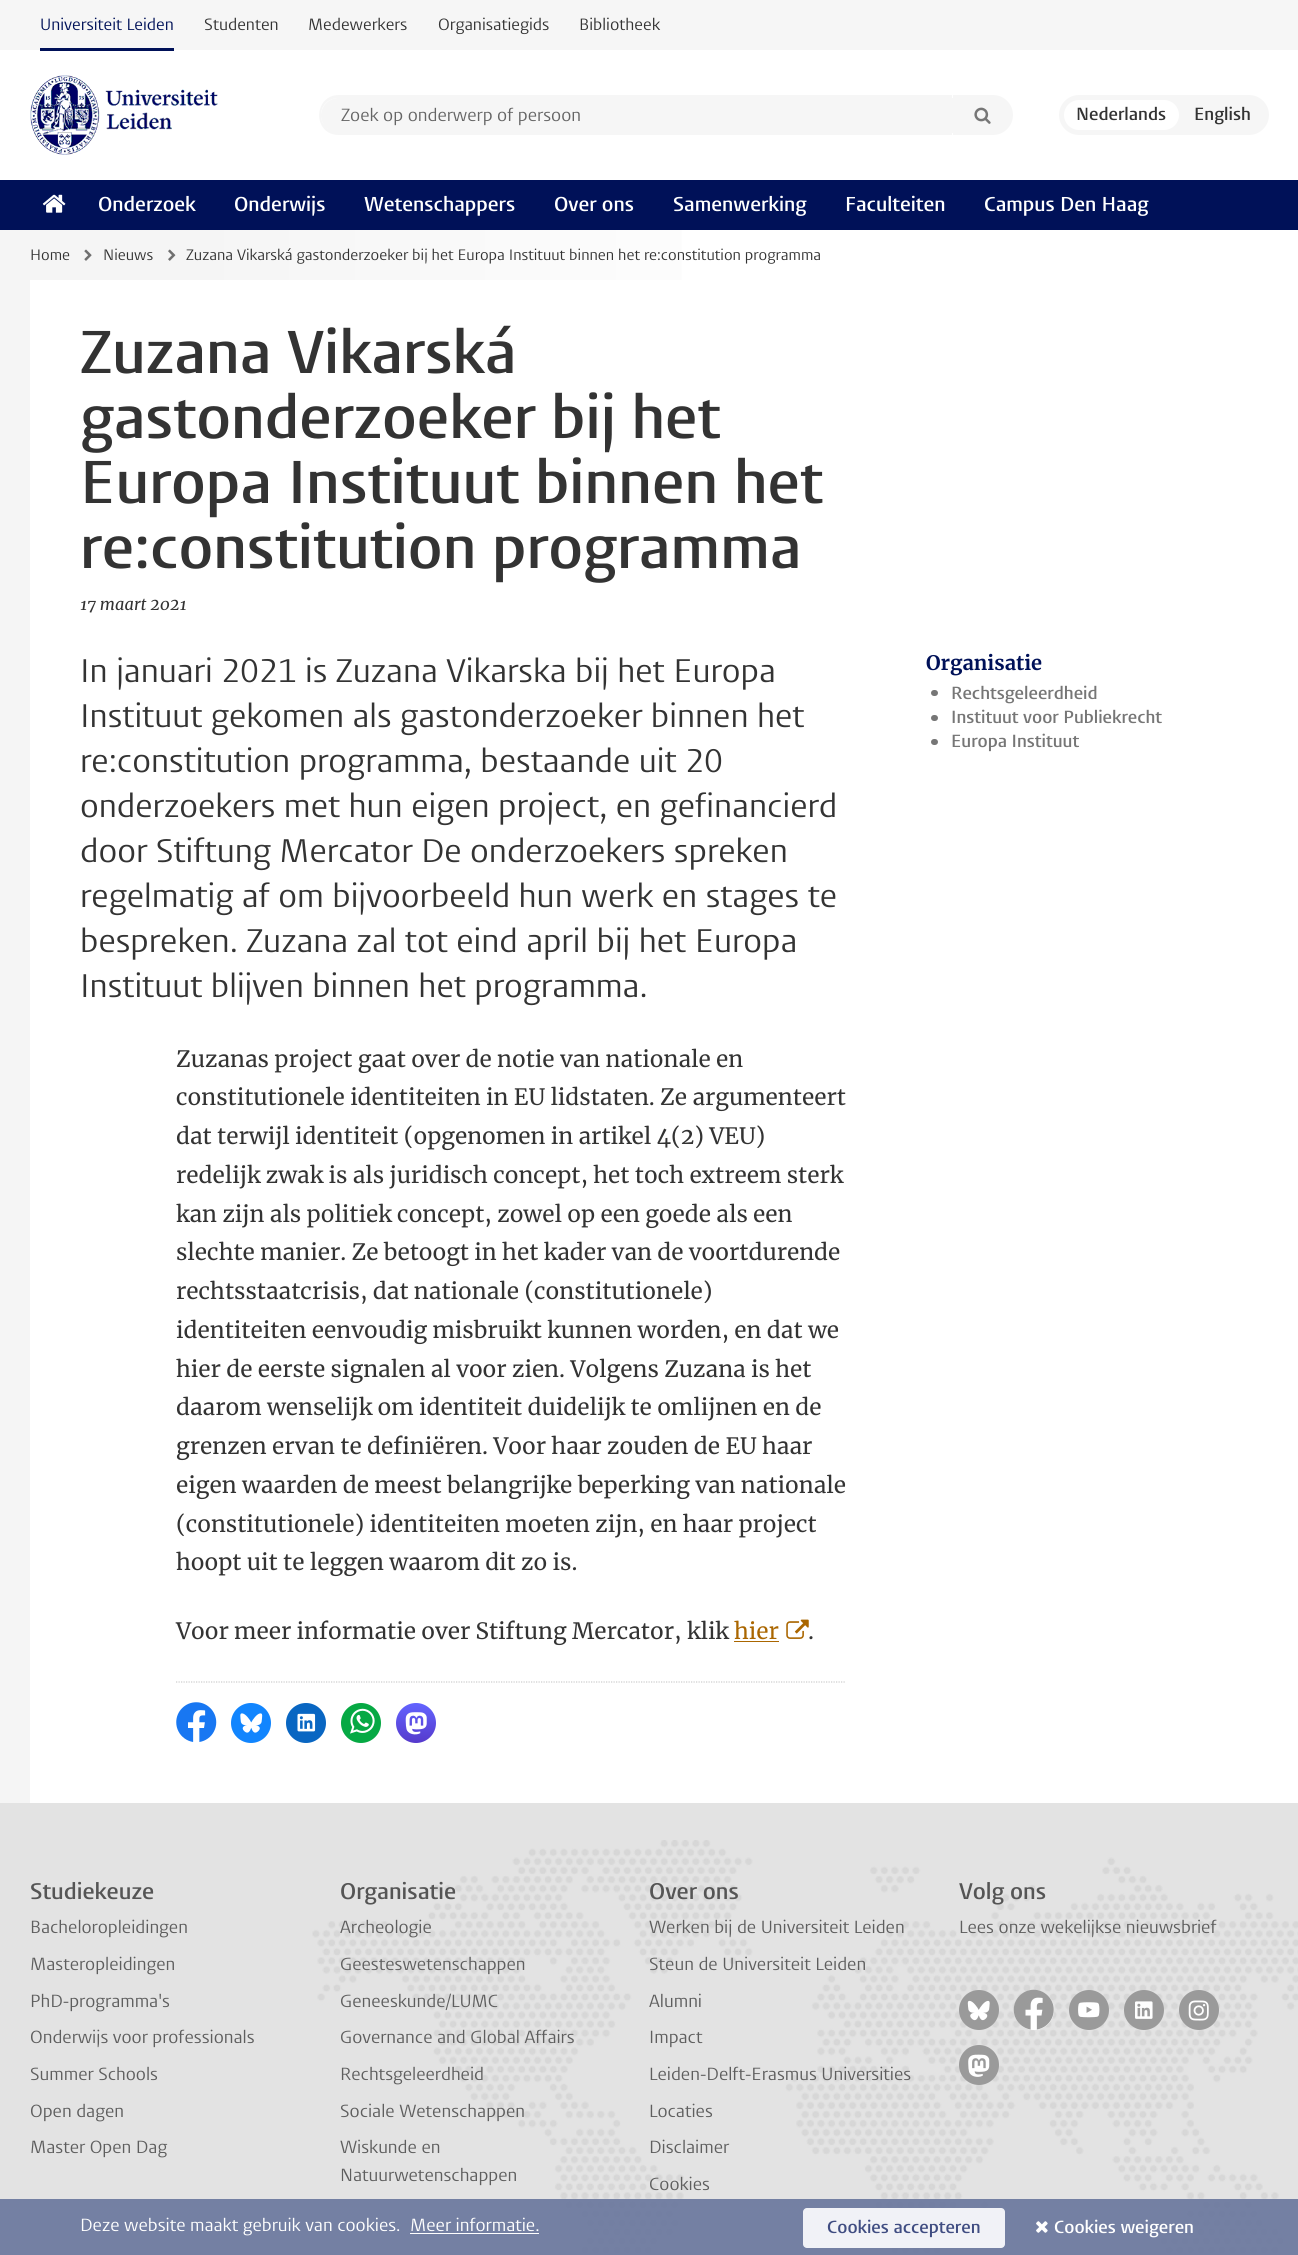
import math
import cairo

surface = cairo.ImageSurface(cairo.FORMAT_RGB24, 1298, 2255)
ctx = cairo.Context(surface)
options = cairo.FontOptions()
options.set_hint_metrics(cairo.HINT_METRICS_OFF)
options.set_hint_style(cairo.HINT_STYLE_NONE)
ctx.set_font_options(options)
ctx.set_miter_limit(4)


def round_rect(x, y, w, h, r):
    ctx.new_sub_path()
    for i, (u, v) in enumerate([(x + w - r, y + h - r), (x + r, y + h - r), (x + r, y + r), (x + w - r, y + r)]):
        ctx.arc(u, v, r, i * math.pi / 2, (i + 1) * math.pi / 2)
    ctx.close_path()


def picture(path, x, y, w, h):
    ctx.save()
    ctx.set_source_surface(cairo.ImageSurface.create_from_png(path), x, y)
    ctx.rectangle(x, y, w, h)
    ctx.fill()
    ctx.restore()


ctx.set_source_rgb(1, 1, 1)
ctx.paint()
gradient = cairo.LinearGradient(0, 1214, 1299, 1214)
gradient.add_color_stop_rgba(0, 0.961, 0.961, 0.961, 1)
gradient.add_color_stop_rgba(0.15, 0.961, 0.961, 0.961, 1)
gradient.add_color_stop_rgba(0.65, 1, 1, 1, 1)
ctx.set_source(gradient)
ctx.rectangle(0, 230, 682, 1573)
ctx.fill()
ctx.set_source_rgb(0.961, 0.961, 0.961)
ctx.rectangle(0, 0, 1298, 50)
ctx.fill()
ctx.select_font_face("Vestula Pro")
ctx.set_font_size(16.25)
ctx.set_source_rgb(0, 0.067, 0.345)
ctx.move_to(40, 30)
ctx.show_text("Universiteit Leiden")
ctx.rectangle(40, 48, 134, 3)
ctx.fill()
ctx.set_source_rgb(0.2, 0.2, 0.2)
ctx.move_to(204, 30)
ctx.show_text("Studenten")
ctx.move_to(308, 30)
ctx.show_text("Medewerkers")
ctx.move_to(438, 30)
ctx.show_text("Organisatiegids")
ctx.move_to(579, 30)
ctx.show_text("Bibliotheek")
picture("img1.png", 30, 75, 188, 80)
ctx.set_source_rgb(0.961, 0.961, 0.961)
ctx.new_path()
ctx.move_to(338.5, 98)
ctx.line_to(953, 98)
ctx.line_to(953, 133)
ctx.line_to(338.5, 133)
ctx.curve_to(329, 133, 321, 125, 321, 115.5)
ctx.curve_to(321, 106, 329, 98, 338.5, 98)
ctx.close_path()
ctx.fill()
ctx.set_fill_rule(cairo.FILL_RULE_EVEN_ODD)
ctx.new_path()
ctx.move_to(339, 95)
ctx.line_to(952, 95)
ctx.line_to(952, 135)
ctx.line_to(339, 135)
ctx.curve_to(312, 135, 313, 95, 339, 95)
ctx.close_path()
ctx.move_to(339, 98)
ctx.line_to(952, 98)
ctx.line_to(952, 132)
ctx.line_to(339, 132)
ctx.curve_to(329, 132, 321, 125, 321, 115)
ctx.curve_to(321, 105, 329, 98, 339, 98)
ctx.close_path()
ctx.fill()
ctx.set_font_size(17.5)
ctx.set_source_rgb(0.396, 0.396, 0.396)
ctx.move_to(341, 121)
ctx.show_text("Zoek op onderwerp of persoon")
ctx.set_source_rgb(0.961, 0.961, 0.961)
ctx.new_path()
ctx.move_to(953, 95)
ctx.line_to(993, 95)
ctx.curve_to(1004, 95, 1013, 104, 1013, 115)
ctx.curve_to(1013, 126, 1004, 135, 993, 135)
ctx.line_to(953, 135)
ctx.close_path()
ctx.fill()
picture("img2.png", 974, 107, 17, 17)
round_rect(1059, 95, 210, 40, 20)
ctx.fill()
ctx.set_source_rgb(1, 1, 1)
round_rect(1064, 100, 115, 30, 15)
ctx.fill()
ctx.select_font_face("Vestula Pro SemiBold")
ctx.set_source_rgb(0.2, 0.2, 0.2)
ctx.move_to(1076, 120)
ctx.show_text("Nederlands")
ctx.move_to(1194, 120)
ctx.show_text("English")
ctx.set_source_rgb(0, 0.067, 0.345)
ctx.rectangle(0, 180, 1298, 50)
ctx.fill()
picture("img3.png", 42, 194, 24, 19)
ctx.set_font_size(20)
ctx.set_source_rgb(1, 1, 1)
ctx.move_to(98, 211)
ctx.show_text("Onderzoek")
ctx.move_to(234, 211)
ctx.show_text("Onderwijs")
ctx.move_to(364, 211)
ctx.show_text("Wetenschappers")
ctx.move_to(554, 211)
ctx.show_text("Over ons")
ctx.move_to(673, 211)
ctx.show_text("Samenwerking")
ctx.move_to(845, 211)
ctx.show_text("Faculteiten")
ctx.move_to(984, 211)
ctx.show_text("Campus Den Haag")
ctx.select_font_face("Vestula Pro")
ctx.set_font_size(15)
ctx.set_source_rgb(0.2, 0.2, 0.2)
ctx.move_to(30, 260)
ctx.show_text("Home")
picture("img4.png", 84, 249, 8, 12)
ctx.move_to(103, 260)
ctx.show_text("Nieuws")
picture("img5.png", 168, 249, 8, 12)
ctx.move_to(186, 260)
ctx.show_text("Zuzana Vikarská gastonderzoeker bij het Europa Instituut binnen het re:constitution programma")
ctx.set_source_rgb(1, 1, 1)
ctx.rectangle(30, 280, 652, 1523)
ctx.fill()
ctx.select_font_face("Vestula Pro SemiBold")
ctx.set_font_size(60)
ctx.set_source_rgb(0.2, 0.2, 0.2)
ctx.move_to(80, 373)
ctx.show_text("Zuzana Vikarská")
ctx.move_to(80, 438)
ctx.show_text("gastonderzoeker bij het")
ctx.move_to(80, 503)
ctx.show_text("Europa Instituut binnen het")
ctx.move_to(80, 568)
ctx.show_text("re:constitution programma")
ctx.select_font_face("Merriweather", cairo.FONT_SLANT_ITALIC)
ctx.set_font_size(16.25)
ctx.move_to(80, 610)
ctx.show_text("17 maart 2021")
ctx.select_font_face("Vestula Pro")
ctx.set_font_size(32.5)
ctx.move_to(80, 682)
ctx.show_text("In januari 2021 is Zuzana Vikarska bij het Europa")
ctx.move_to(80, 727)
ctx.show_text("Instituut gekomen als gastonderzoeker binnen het")
ctx.move_to(80, 772)
ctx.show_text("re:constitution programma, bestaande uit 20")
ctx.move_to(80, 817)
ctx.show_text("onderzoekers met hun eigen project, en gefinancierd")
ctx.move_to(80, 862)
ctx.show_text("door Stiftung Mercator De onderzoekers spreken")
ctx.move_to(80, 907)
ctx.show_text("regelmatig af om bijvoorbeeld hun werk en stages te")
ctx.move_to(80, 952)
ctx.show_text("bespreken. Zuzana zal tot eind april bij het Europa")
ctx.move_to(80, 997)
ctx.show_text("Instituut blijven binnen het programma.")
ctx.select_font_face("Merriweather")
ctx.set_font_size(22.5)
ctx.move_to(176, 1067)
ctx.show_text("Zuzanas project gaat over de notie van nationale en")
ctx.move_to(176, 1105)
ctx.show_text("constitutionele identiteiten in EU lidstaten. Ze argumenteert")
ctx.move_to(176, 1144)
ctx.show_text("dat terwijl identiteit (opgenomen in artikel 4(2) VEU)")
ctx.move_to(176, 1183)
ctx.show_text("redelijk zwak is als juridisch concept, het toch extreem sterk")
ctx.move_to(176, 1222)
ctx.show_text("kan zijn als politiek concept, zowel op een goede als een")
ctx.move_to(176, 1260)
ctx.show_text("slechte manier. Ze betoogt in het kader van de voortdurende")
ctx.move_to(176, 1299)
ctx.show_text("rechtsstaatcrisis, dat nationale (constitutionele)")
ctx.move_to(176, 1338)
ctx.show_text("identiteiten eenvoudig misbruikt kunnen worden, en dat we")
ctx.move_to(176, 1377)
ctx.show_text("hier de eerste signalen al voor zien. Volgens Zuzana is het")
ctx.move_to(176, 1415)
ctx.show_text("daarom wenselijk om identiteit duidelijk te omlijnen en de")
ctx.move_to(176, 1454)
ctx.show_text("grenzen ervan te definiëren. Voor haar zouden de EU haar")
ctx.move_to(176, 1493)
ctx.show_text("eigen waarden de meest belangrijke beperking van nationale")
ctx.move_to(176, 1532)
ctx.show_text("(constitutionele) identiteiten moeten zijn, en haar project")
ctx.move_to(176, 1570)
ctx.show_text("hoopt uit te leggen waarom dit zo is.")
ctx.move_to(176, 1639)
ctx.show_text("Voor meer informatie over Stiftung Mercator, klik")
ctx.set_source_rgb(0.667, 0.4, 0)
ctx.move_to(734, 1639)
ctx.show_text("hier")
ctx.rectangle(734, 1641, 45, 1)
ctx.fill()
picture("img6.png", 786, 1619, 23, 20)
ctx.set_source_rgb(0.2, 0.2, 0.2)
ctx.move_to(808, 1639)
ctx.show_text(".")
ctx.new_path()
ctx.move_to(176, 1682)
ctx.line_to(846, 1682)
ctx.set_source_rgb(0.8, 0.8, 0.8)
ctx.set_line_width(1.2)
ctx.set_dash([1.25, 1.25])
ctx.stroke()
picture("img7.png", 176, 1702, 41, 40)
ctx.set_source_rgb(0.067, 0.522, 0.996)
ctx.arc(251, 1723, 20, 0, 2 * math.pi)
ctx.fill()
picture("img8.png", 240, 1713, 23, 20)
ctx.set_source_rgb(0.039, 0.4, 0.761)
ctx.arc(306, 1723, 20, 0, 2 * math.pi)
ctx.fill()
picture("img9.png", 297, 1713, 19, 19)
ctx.set_source_rgb(0.027, 0.663, 0.267)
ctx.arc(361, 1723, 20, 0, 2 * math.pi)
ctx.fill()
picture("img10.png", 350, 1708, 25, 26)
gradient = cairo.LinearGradient(416, 1703, 416, 1743)
gradient.add_color_stop_rgba(0, 0.388, 0.392, 1, 1)
gradient.add_color_stop_rgba(1, 0.337, 0.227, 0.8, 1)
ctx.set_source(gradient)
ctx.arc(416, 1723, 20, 0, 2 * math.pi)
ctx.fill()
picture("img11.png", 405, 1712, 22, 23)
ctx.select_font_face("Merriweather", cairo.FONT_SLANT_NORMAL, cairo.FONT_WEIGHT_BOLD)
ctx.set_font_size(20)
ctx.set_source_rgb(0, 0.067, 0.345)
ctx.move_to(926, 670)
ctx.show_text("Organisatie")
ctx.set_source_rgb(0.463, 0.463, 0.463)
round_rect(931, 690, 7, 6, 3)
ctx.fill()
ctx.select_font_face("Vestula Pro SemiBold")
ctx.set_font_size(17.5)
ctx.move_to(951, 699)
ctx.show_text("Rechtsgeleerdheid")
round_rect(931, 715, 7, 6, 3)
ctx.fill()
ctx.move_to(951, 723)
ctx.show_text("Instituut voor Publiekrecht")
round_rect(931, 739, 7, 6, 3)
ctx.fill()
ctx.move_to(951, 747)
ctx.show_text("Europa Instituut")
ctx.set_source_rgb(0.89, 0.89, 0.89)
ctx.rectangle(0, 1803, 1298, 452)
ctx.fill()
picture("img12.png", 312, 1840, 986, 414)
ctx.set_font_size(22.5)
ctx.set_source_rgb(0.333, 0.333, 0.333)
ctx.move_to(30, 1899)
ctx.show_text("Studiekeuze")
ctx.select_font_face("Vestula Pro")
ctx.set_font_size(17.5)
ctx.set_source_rgb(0.369, 0.369, 0.369)
ctx.move_to(30, 1933)
ctx.show_text("Bacheloropleidingen")
ctx.move_to(30, 1970)
ctx.show_text("Masteropleidingen")
ctx.move_to(30, 2007)
ctx.show_text("PhD-programma's")
ctx.move_to(30, 2043)
ctx.show_text("Onderwijs voor professionals")
ctx.move_to(30, 2080)
ctx.show_text("Summer Schools")
ctx.move_to(30, 2117)
ctx.show_text("Open dagen")
ctx.move_to(30, 2153)
ctx.show_text("Master Open Dag")
ctx.select_font_face("Vestula Pro SemiBold")
ctx.set_font_size(22.5)
ctx.set_source_rgb(0.333, 0.333, 0.333)
ctx.move_to(340, 1899)
ctx.show_text("Organisatie")
ctx.select_font_face("Vestula Pro")
ctx.set_font_size(17.5)
ctx.set_source_rgb(0.369, 0.369, 0.369)
ctx.move_to(340, 1933)
ctx.show_text("Archeologie")
ctx.move_to(340, 1970)
ctx.show_text("Geesteswetenschappen")
ctx.move_to(340, 2007)
ctx.show_text("Geneeskunde/LUMC")
ctx.move_to(340, 2043)
ctx.show_text("Governance and Global Affairs")
ctx.move_to(340, 2080)
ctx.show_text("Rechtsgeleerdheid")
ctx.move_to(340, 2117)
ctx.show_text("Sociale Wetenschappen")
ctx.move_to(340, 2153)
ctx.show_text("Wiskunde en")
ctx.move_to(340, 2181)
ctx.show_text("Natuurwetenschappen")
ctx.select_font_face("Vestula Pro SemiBold")
ctx.set_font_size(22.5)
ctx.set_source_rgb(0.333, 0.333, 0.333)
ctx.move_to(649, 1899)
ctx.show_text("Over ons")
ctx.select_font_face("Vestula Pro")
ctx.set_font_size(17.5)
ctx.set_source_rgb(0.369, 0.369, 0.369)
ctx.move_to(649, 1933)
ctx.show_text("Werken bij de Universiteit Leiden")
ctx.move_to(649, 1970)
ctx.show_text("Steun de Universiteit Leiden")
ctx.move_to(649, 2007)
ctx.show_text("Alumni")
ctx.move_to(649, 2043)
ctx.show_text("Impact")
ctx.move_to(649, 2080)
ctx.show_text("Leiden-Delft-Erasmus Universities")
ctx.move_to(649, 2117)
ctx.show_text("Locaties")
ctx.move_to(649, 2153)
ctx.show_text("Disclaimer")
ctx.move_to(649, 2190)
ctx.show_text("Cookies")
ctx.select_font_face("Vestula Pro SemiBold")
ctx.set_font_size(22.5)
ctx.set_source_rgb(0.333, 0.333, 0.333)
ctx.move_to(959, 1899)
ctx.show_text("Volg ons")
ctx.select_font_face("Vestula Pro")
ctx.set_font_size(17.5)
ctx.set_source_rgb(0.369, 0.369, 0.369)
ctx.move_to(959, 1933)
ctx.show_text("Lees onze wekelijkse nieuwsbrief")
ctx.set_source_rgb(0.604, 0.604, 0.604)
ctx.new_path()
ctx.arc(979, 2010, 20, 0, 2 * math.pi)
ctx.fill()
picture("img13.png", 967, 2000, 23, 21)
ctx.set_source_rgb(1, 1, 1)
ctx.arc(1034, 2010, 20, 0, 2 * math.pi)
ctx.fill()
picture("img14.png", 1013, 1989, 41, 41)
ctx.set_source_rgb(0.604, 0.604, 0.604)
ctx.arc(1089, 2010, 20, 0, 2 * math.pi)
ctx.fill()
picture("img15.png", 1078, 2002, 22, 16)
ctx.arc(1144, 2010, 20, 0, 2 * math.pi)
ctx.fill()
picture("img16.png", 1135, 2001, 18, 18)
ctx.arc(1199, 2010, 20, 0, 2 * math.pi)
ctx.fill()
picture("img17.png", 1188, 2000, 21, 21)
ctx.arc(979, 2065, 20, 0, 2 * math.pi)
ctx.fill()
picture("img18.png", 968, 2054, 22, 23)
ctx.set_source_rgba(0.408, 0.463, 0.612, 0.9)
ctx.rectangle(0, 2199, 1298, 56)
ctx.fill()
ctx.set_source_rgb(1, 1, 1)
ctx.move_to(80, 2231)
ctx.show_text("Deze website maakt gebruik van cookies.")
ctx.move_to(410, 2231)
ctx.show_text("Meer informatie.")
ctx.rectangle(410, 2233, 129, 1)
ctx.fill()
ctx.set_source_rgb(0.945, 0.949, 0.965)
round_rect(803, 2208, 202, 40, 4)
ctx.fill()
ctx.select_font_face("Vestula Pro SemiBold")
ctx.set_source_rgb(0.251, 0.302, 0.51)
ctx.move_to(827, 2233)
ctx.show_text("Cookies accepteren")
picture("img19.png", 1036, 2221, 12, 12)
ctx.set_source_rgb(1, 1, 1)
ctx.move_to(1054, 2233)
ctx.show_text("Cookies weigeren")
surface.write_to_png("page.png")
